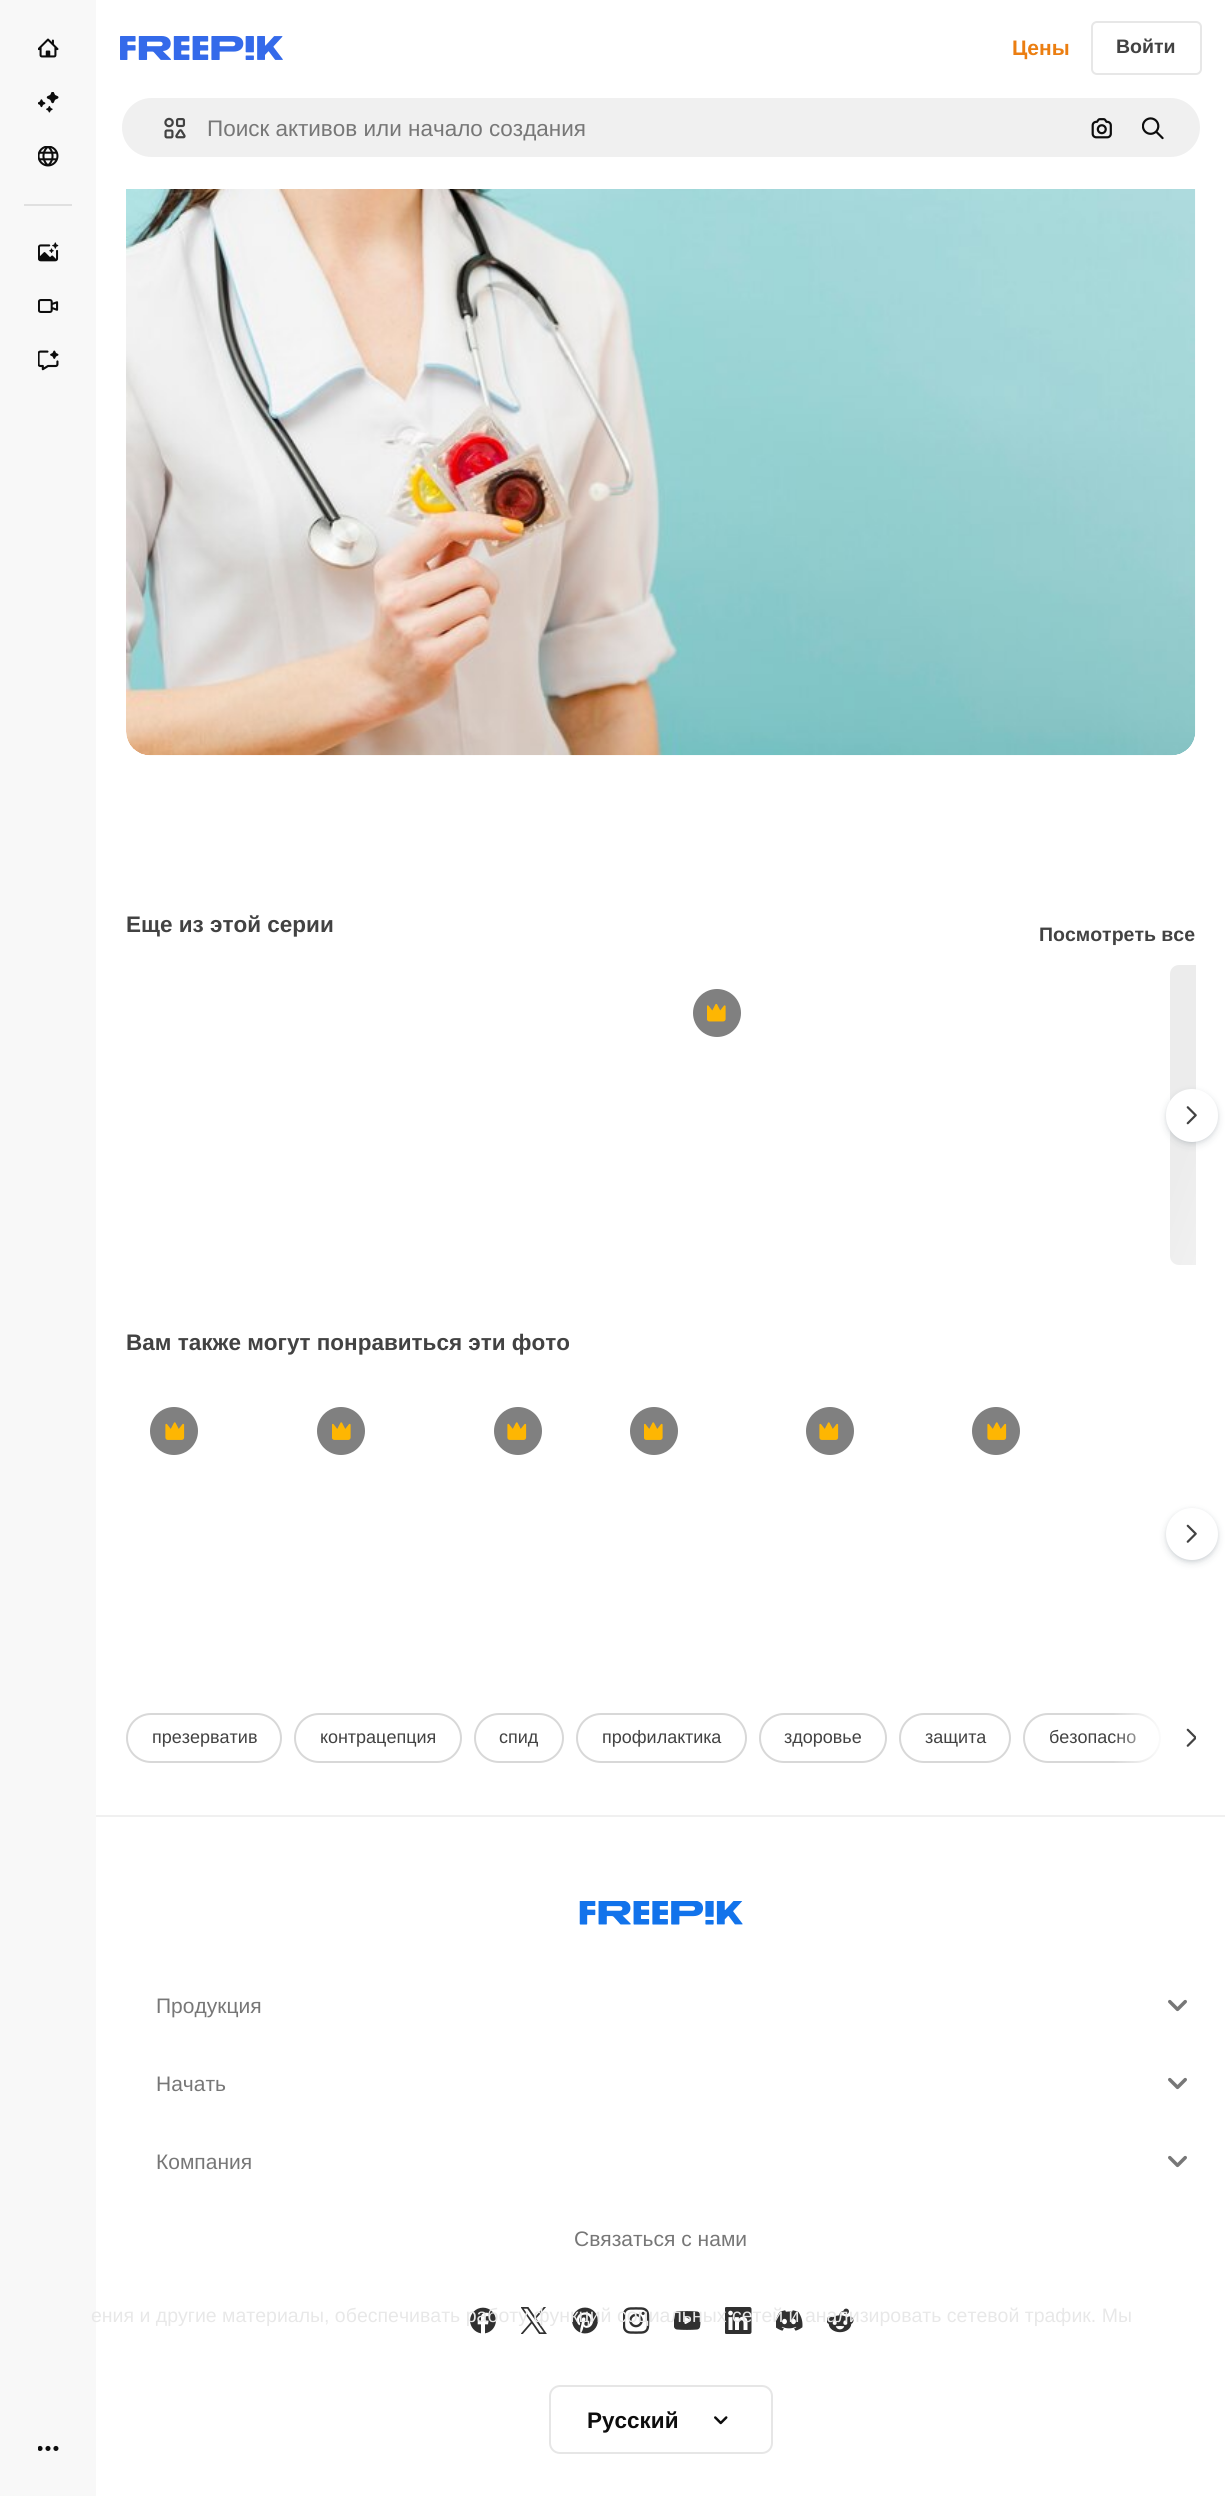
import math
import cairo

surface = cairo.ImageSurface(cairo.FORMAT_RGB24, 1225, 2496)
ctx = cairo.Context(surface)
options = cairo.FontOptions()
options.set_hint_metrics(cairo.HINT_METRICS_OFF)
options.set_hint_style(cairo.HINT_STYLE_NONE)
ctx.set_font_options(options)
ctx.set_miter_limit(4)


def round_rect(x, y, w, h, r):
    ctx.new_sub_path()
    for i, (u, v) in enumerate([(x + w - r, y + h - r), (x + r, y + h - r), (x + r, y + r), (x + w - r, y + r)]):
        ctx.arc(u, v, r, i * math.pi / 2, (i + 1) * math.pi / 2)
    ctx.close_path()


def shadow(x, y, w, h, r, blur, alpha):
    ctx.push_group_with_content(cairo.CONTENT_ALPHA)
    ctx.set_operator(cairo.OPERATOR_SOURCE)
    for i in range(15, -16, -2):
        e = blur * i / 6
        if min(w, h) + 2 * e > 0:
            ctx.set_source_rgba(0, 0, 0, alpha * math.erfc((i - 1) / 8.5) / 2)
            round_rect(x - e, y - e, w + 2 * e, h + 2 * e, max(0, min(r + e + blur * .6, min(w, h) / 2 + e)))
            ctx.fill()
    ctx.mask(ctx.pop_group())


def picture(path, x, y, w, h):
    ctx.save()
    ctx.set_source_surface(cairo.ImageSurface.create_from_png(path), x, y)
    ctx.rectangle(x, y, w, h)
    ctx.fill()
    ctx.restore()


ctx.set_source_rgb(1, 1, 1)
ctx.paint()
ctx.set_source_rgb(0.969, 0.969, 0.969)
ctx.rectangle(0, 0, 96, 2496)
ctx.fill()
picture("img1.png", 38, 38, 21, 20)
picture("img2.png", 38, 92, 21, 21)
picture("img3.png", 38, 146, 21, 21)
ctx.set_source_rgb(0.878, 0.878, 0.878)
ctx.rectangle(24, 204, 48, 2)
ctx.fill()
picture("img4.png", 38, 242, 21, 20)
picture("img5.png", 38, 299, 21, 14)
picture("img6.png", 38, 350, 21, 21)
picture("img7.png", 38, 2445, 21, 6)
picture("img8.png", 120, 36, 163, 24)
ctx.select_font_face("Liberation Sans", cairo.FONT_SLANT_NORMAL, cairo.FONT_WEIGHT_BOLD)
ctx.set_font_size(21)
ctx.set_source_rgb(0.918, 0.494, 0.067)
ctx.move_to(1012, 55)
ctx.show_text("Цены")
round_rect(1092, 22, 109, 52, 5)
ctx.set_source_rgb(0.906, 0.906, 0.906)
ctx.stroke()
ctx.set_font_size(19.5)
ctx.set_source_rgb(0.259, 0.259, 0.259)
ctx.move_to(1116, 53)
ctx.show_text("Войти")
ctx.set_source_rgb(0.941, 0.941, 0.941)
round_rect(121, 97, 1080, 61, 30.5)
ctx.fill_preserve()
ctx.set_source_rgb(1, 1, 1)
ctx.stroke()
picture("img9.png", 164, 117, 22, 22)
ctx.select_font_face("Liberation Sans")
ctx.set_font_size(22.5)
ctx.set_source_rgb(0.467, 0.467, 0.467)
ctx.move_to(207, 136)
ctx.show_text("Поиск активов или начало создания")
picture("img10.png", 1091, 118, 21, 21)
picture("img11.png", 1142, 117, 22, 23)
picture("img12.png", 126, 189, 1070, 567)
ctx.select_font_face("Liberation Sans", cairo.FONT_SLANT_NORMAL, cairo.FONT_WEIGHT_BOLD)
ctx.set_source_rgb(0.259, 0.259, 0.259)
ctx.move_to(126, 932)
ctx.show_text("Еще из этой серии")
ctx.set_font_size(19.5)
ctx.move_to(1039, 941)
ctx.show_text("Посмотреть все")
ctx.set_source_rgb(0.502, 0.502, 0.502)
ctx.new_path()
ctx.arc(717, 1013, 24, 0, 2 * math.pi)
ctx.fill()
picture("img13.png", 707, 1004, 19, 18)
gradient = cairo.LinearGradient(1174, 952, 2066, 1277)
gradient.add_color_stop_rgba(0.08, 0.925, 0.925, 0.925, 1)
gradient.add_color_stop_rgba(0.18, 0.961, 0.961, 0.961, 1)
gradient.add_color_stop_rgba(0.33, 0.925, 0.925, 0.925, 1)
ctx.set_source(gradient)
ctx.new_path()
ctx.move_to(1179, 965)
ctx.line_to(1196, 965)
ctx.line_to(1196, 1265)
ctx.line_to(1179, 1265)
ctx.curve_to(1174, 1265, 1170, 1261, 1170, 1256)
ctx.line_to(1170, 974)
ctx.curve_to(1170, 969, 1174, 965, 1179, 965)
ctx.close_path()
ctx.fill()
ctx.set_source_rgb(0.216, 0.286, 0.341)
shadow(1166, 1092, 52, 53, 26, 4, 0.15)
shadow(1166, 1091, 52, 52, 26, 1.5, 0.1)
ctx.set_source_rgb(1, 1, 1)
round_rect(1166, 1089, 52, 53, 26)
ctx.fill()
picture("img14.png", 1186, 1106, 11, 19)
ctx.set_font_size(22.5)
ctx.set_source_rgb(0.259, 0.259, 0.259)
ctx.move_to(126, 1350)
ctx.show_text("Вам также могут понравиться эти фото")
ctx.set_source_rgb(0.502, 0.502, 0.502)
ctx.new_path()
ctx.arc(174, 1431, 24, 0, 2 * math.pi)
ctx.fill()
picture("img15.png", 165, 1422, 20, 18)
ctx.arc(341, 1431, 24, 0, 2 * math.pi)
ctx.fill()
picture("img16.png", 332, 1422, 19, 18)
ctx.arc(518, 1431, 24, 0, 2 * math.pi)
ctx.fill()
picture("img15.png", 507, 1422, 20, 18)
ctx.arc(654, 1431, 24, 0, 2 * math.pi)
ctx.fill()
picture("img16.png", 644, 1422, 19, 18)
ctx.arc(830, 1431, 24, 0, 2 * math.pi)
ctx.fill()
picture("img15.png", 819, 1422, 20, 18)
ctx.arc(996, 1431, 24, 0, 2 * math.pi)
ctx.fill()
picture("img15.png", 987, 1422, 20, 18)
ctx.set_source_rgb(0.216, 0.286, 0.341)
shadow(1166, 1511, 52, 52, 26, 4, 0.15)
shadow(1166, 1509, 52, 53, 26, 1.5, 0.1)
ctx.set_source_rgb(1, 1, 1)
ctx.arc(1192, 1534, 26, 0, 2 * math.pi)
ctx.fill()
picture("img17.png", 1186, 1524, 11, 19)
round_rect(127, 1714, 154, 48, 24)
ctx.set_source_rgb(0.847, 0.847, 0.847)
ctx.stroke()
ctx.select_font_face("Liberation Sans")
ctx.set_font_size(18)
ctx.set_source_rgb(0.259, 0.259, 0.259)
ctx.move_to(152, 1743)
ctx.show_text("презерватив")
round_rect(295, 1714, 166, 48, 24)
ctx.set_source_rgb(0.847, 0.847, 0.847)
ctx.stroke()
ctx.set_source_rgb(0.259, 0.259, 0.259)
ctx.move_to(320, 1743)
ctx.show_text("контрацепция")
round_rect(475, 1714, 88, 48, 24)
ctx.set_source_rgb(0.847, 0.847, 0.847)
ctx.stroke()
ctx.set_source_rgb(0.259, 0.259, 0.259)
ctx.move_to(499, 1743)
ctx.show_text("спид")
round_rect(577, 1714, 169, 48, 24)
ctx.set_source_rgb(0.847, 0.847, 0.847)
ctx.stroke()
ctx.set_source_rgb(0.259, 0.259, 0.259)
ctx.move_to(602, 1743)
ctx.show_text("профилактика")
round_rect(760, 1714, 126, 48, 24)
ctx.set_source_rgb(0.847, 0.847, 0.847)
ctx.stroke()
ctx.set_source_rgb(0.259, 0.259, 0.259)
ctx.move_to(784, 1743)
ctx.show_text("здоровье")
round_rect(900, 1714, 110, 48, 24)
ctx.set_source_rgb(0.847, 0.847, 0.847)
ctx.stroke()
ctx.set_source_rgb(0.259, 0.259, 0.259)
ctx.move_to(925, 1743)
ctx.show_text("защита")
round_rect(1024, 1714, 136, 48, 24)
ctx.set_source_rgb(0.847, 0.847, 0.847)
ctx.stroke()
ctx.set_source_rgb(0.259, 0.259, 0.259)
ctx.move_to(1049, 1743)
ctx.show_text("безопасно")
gradient = cairo.LinearGradient(1166, 1738, 1113, 1738)
gradient.add_color_stop_rgba(0, 1, 1, 1, 1)
gradient.add_color_stop_rgba(1, 1, 1, 1, 0)
ctx.set_source(gradient)
ctx.rectangle(1114, 1713, 47, 50)
ctx.fill()
picture("img18.png", 1186, 1728, 10, 19)
ctx.set_source_rgb(0.941, 0.941, 0.941)
ctx.rectangle(96, 1815, 1129, 2)
ctx.fill()
picture("img19.png", 579, 1901, 164, 24)
ctx.set_font_size(21)
ctx.set_source_rgb(0.467, 0.467, 0.467)
ctx.move_to(156, 2013)
ctx.show_text("Продукция")
picture("img20.png", 1168, 1999, 19, 13)
ctx.move_to(156, 2091)
ctx.show_text("Начать")
picture("img20.png", 1168, 2077, 19, 13)
ctx.move_to(156, 2169)
ctx.show_text("Компания")
picture("img20.png", 1168, 2155, 19, 13)
ctx.move_to(574, 2246)
ctx.show_text("Связаться с нами")
picture("img21.png", 470, 2307, 26, 27)
picture("img22.png", 521, 2307, 26, 27)
picture("img23.png", 572, 2307, 26, 27)
picture("img24.png", 623, 2307, 27, 27)
picture("img25.png", 674, 2311, 27, 19)
picture("img26.png", 725, 2307, 27, 27)
picture("img27.png", 776, 2310, 27, 21)
picture("img28.png", 827, 2308, 27, 25)
round_rect(550, 2386, 222, 67, 10)
ctx.set_source_rgb(0.902, 0.902, 0.902)
ctx.stroke()
ctx.select_font_face("Liberation Sans", cairo.FONT_SLANT_NORMAL, cairo.FONT_WEIGHT_BOLD)
ctx.set_font_size(22.5)
ctx.set_source_rgb(0.051, 0.051, 0.051)
ctx.move_to(587, 2428)
ctx.show_text("Pусский")
picture("img29.png", 714, 2416, 14, 9)
ctx.select_font_face("Liberation Sans")
ctx.set_font_size(19.5)
ctx.set_source_rgb(0.91, 0.91, 0.91)
ctx.move_to(91, 2322)
ctx.show_text("ения и другие материалы, обеспечивать работу функций социальных сетей и анализировать сетевой трафик. Мы")
surface.write_to_png("page.png")
